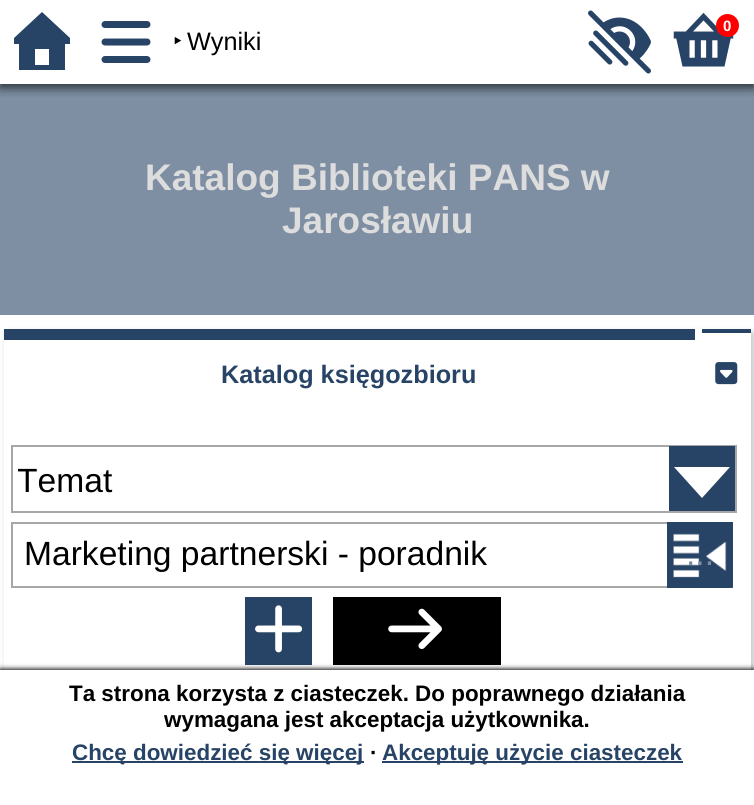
import math
import cairo

surface = cairo.ImageSurface(cairo.FORMAT_RGB24, 754, 805)
ctx = cairo.Context(surface)
options = cairo.FontOptions()
options.set_hint_metrics(cairo.HINT_METRICS_OFF)
options.set_hint_style(cairo.HINT_STYLE_NONE)
ctx.set_font_options(options)
ctx.set_miter_limit(4)


def round_rect(x, y, w, h, r):
    ctx.new_sub_path()
    for i, (u, v) in enumerate([(x + w - r, y + h - r), (x + r, y + h - r), (x + r, y + r), (x + w - r, y + r)]):
        ctx.arc(u, v, r, i * math.pi / 2, (i + 1) * math.pi / 2)
    ctx.close_path()


def shadow(x, y, w, h, r, blur, alpha):
    ctx.push_group_with_content(cairo.CONTENT_ALPHA)
    ctx.set_operator(cairo.OPERATOR_SOURCE)
    for i in range(15, -16, -2):
        e = blur * i / 6
        if min(w, h) + 2 * e > 0:
            ctx.set_source_rgba(0, 0, 0, alpha * math.erfc((i - 1) / 8.5) / 2)
            round_rect(x - e, y - e, w + 2 * e, h + 2 * e, max(0, min(r + e + blur * .6, min(w, h) / 2 + e)))
            ctx.fill()
    ctx.mask(ctx.pop_group())


def picture(path, x, y, w, h):
    ctx.save()
    ctx.set_source_surface(cairo.ImageSurface.create_from_png(path), x, y)
    ctx.rectangle(x, y, w, h)
    ctx.fill()
    ctx.restore()


ctx.set_source_rgb(1, 1, 1)
ctx.paint()
ctx.set_source_rgb(0.494, 0.561, 0.639)
ctx.rectangle(0, 84, 754, 231)
ctx.fill()
ctx.save()
ctx.rectangle(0, 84, 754, 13)
ctx.clip()
ctx.set_source_rgb(0, 0, 0)
shadow(0, 4, 754, 84, 0, 5, 0.65)
ctx.restore()
picture("img1.png", 588, 10, 63, 64)
picture("img2.png", 673, 12, 61, 55)
ctx.set_source_rgb(1, 0, 0)
ctx.arc(727.5, 25.5, 11.5, 0, 2 * math.pi)
ctx.fill()
ctx.select_font_face("Liberation Sans", cairo.FONT_SLANT_NORMAL, cairo.FONT_WEIGHT_BOLD)
ctx.set_font_size(15)
ctx.set_source_rgb(1, 1, 1)
ctx.move_to(723, 31)
ctx.show_text("0")
ctx.set_source_rgb(0.153, 0.267, 0.4)
ctx.new_path()
ctx.move_to(70, 44)
ctx.line_to(65, 44)
ctx.line_to(65, 70)
ctx.line_to(19, 70)
ctx.line_to(19, 44)
ctx.line_to(14, 44)
ctx.line_to(14, 38)
ctx.line_to(42, 12)
ctx.line_to(70, 38)
ctx.close_path()
ctx.move_to(49, 65)
ctx.line_to(49, 49)
ctx.line_to(35, 49)
ctx.line_to(35, 65)
ctx.close_path()
ctx.fill()
picture("img3.png", 101, 21, 50, 42)
ctx.select_font_face("Noto Sans")
ctx.set_font_size(25.25)
ctx.set_source_rgb(0, 0, 0)
ctx.move_to(173, 50)
ctx.show_text("‣")
ctx.select_font_face("Liberation Sans")
ctx.move_to(187, 50)
ctx.show_text("Wyniki")
ctx.select_font_face("Liberation Sans", cairo.FONT_SLANT_NORMAL, cairo.FONT_WEIGHT_BOLD)
ctx.set_font_size(37)
ctx.set_source_rgb(0.867, 0.867, 0.867)
ctx.move_to(145, 190)
ctx.show_text("Katalog Biblioteki PANS w")
ctx.move_to(282, 233)
ctx.show_text("Jarosławiu")
ctx.save()
ctx.set_fill_rule(cairo.FILL_RULE_EVEN_ODD)
ctx.new_path()
ctx.move_to(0, 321)
ctx.line_to(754, 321)
ctx.line_to(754, 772)
ctx.line_to(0, 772)
ctx.close_path()
ctx.move_to(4, 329)
ctx.line_to(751, 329)
ctx.line_to(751, 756)
ctx.line_to(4, 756)
ctx.close_path()
ctx.clip()
ctx.set_source_rgb(0, 0, 0)
shadow(7, 333, 747, 427, 0, 3.5, 0.25)
ctx.restore()
ctx.set_source_rgba(1, 1, 1, 0.95)
ctx.rectangle(750, 330, 1, 340)
ctx.fill()
ctx.set_source_rgb(0.153, 0.267, 0.4)
ctx.rectangle(4, 329, 691, 11)
ctx.fill()
ctx.set_font_size(25.25)
ctx.move_to(221, 383)
ctx.show_text("Katalog księgozbioru")
ctx.rectangle(702, 329, 49, 4)
ctx.fill()
picture("img4.png", 715, 362, 23, 23)
ctx.rectangle(12, 446, 724, 66)
ctx.set_source_rgb(0.655, 0.655, 0.655)
ctx.stroke()
ctx.save()
ctx.rectangle(18, 464, 717, 33)
ctx.clip()
ctx.select_font_face("Liberation Sans")
ctx.set_font_size(33.6)
ctx.set_source_rgb(0, 0, 0)
ctx.move_to(17, 492)
ctx.show_text("Temat")
ctx.restore()
ctx.set_source_rgb(0.153, 0.267, 0.4)
ctx.rectangle(669, 446, 66, 65)
ctx.fill()
ctx.set_source_rgb(1, 1, 1)
ctx.new_path()
ctx.move_to(730, 467)
ctx.line_to(702, 498)
ctx.line_to(674, 467)
ctx.close_path()
ctx.fill()
ctx.rectangle(12, 523, 720, 64)
ctx.set_source_rgb(0.655, 0.655, 0.655)
ctx.stroke()
ctx.select_font_face("Liberation Sans")
ctx.set_font_size(33.6)
ctx.set_source_rgb(0, 0, 0)
ctx.move_to(24, 565)
ctx.show_text("Marketing partnerski - poradnik")
ctx.set_source_rgb(0.153, 0.267, 0.4)
ctx.rectangle(667, 522, 66, 66)
ctx.fill()
picture("img5.png", 673, 533, 60, 55)
ctx.set_source_rgb(0.482, 0.553, 0.635)
ctx.move_to(686, 565)
ctx.show_text("...")
ctx.set_source_rgb(0.153, 0.267, 0.4)
ctx.rectangle(245, 597, 67, 68)
ctx.fill()
picture("img6.png", 255, 605, 48, 48)
ctx.set_source_rgb(0, 0, 0)
ctx.rectangle(333, 597, 168, 68)
ctx.fill()
picture("img7.png", 388, 608, 54, 41)
ctx.set_source_rgb(0, 0, 0)
shadow(0, 669, 754, 134, 0, 2.5, 1)
ctx.set_source_rgb(1, 1, 1)
ctx.rectangle(0, 670, 754, 135)
ctx.fill()
ctx.select_font_face("Liberation Sans", cairo.FONT_SLANT_NORMAL, cairo.FONT_WEIGHT_BOLD)
ctx.set_font_size(22.4)
ctx.set_source_rgb(0, 0, 0)
ctx.move_to(69, 701)
ctx.show_text("Ta strona korzysta z ciasteczek. Do poprawnego działania")
ctx.move_to(164, 727)
ctx.show_text("wymagana jest akceptacja użytkownika.")
ctx.set_source_rgb(0.153, 0.267, 0.4)
ctx.rectangle(72, 761, 292, 2)
ctx.fill()
ctx.move_to(72, 760)
ctx.show_text("Chcę dowiedzieć się więcej")
ctx.set_source_rgb(0, 0, 0)
ctx.move_to(370, 760)
ctx.show_text("∙")
ctx.set_source_rgb(0.153, 0.267, 0.4)
ctx.rectangle(382, 761, 301, 2)
ctx.fill()
ctx.move_to(382, 760)
ctx.show_text("Akceptuję użycie ciasteczek")
surface.write_to_png("page.png")
